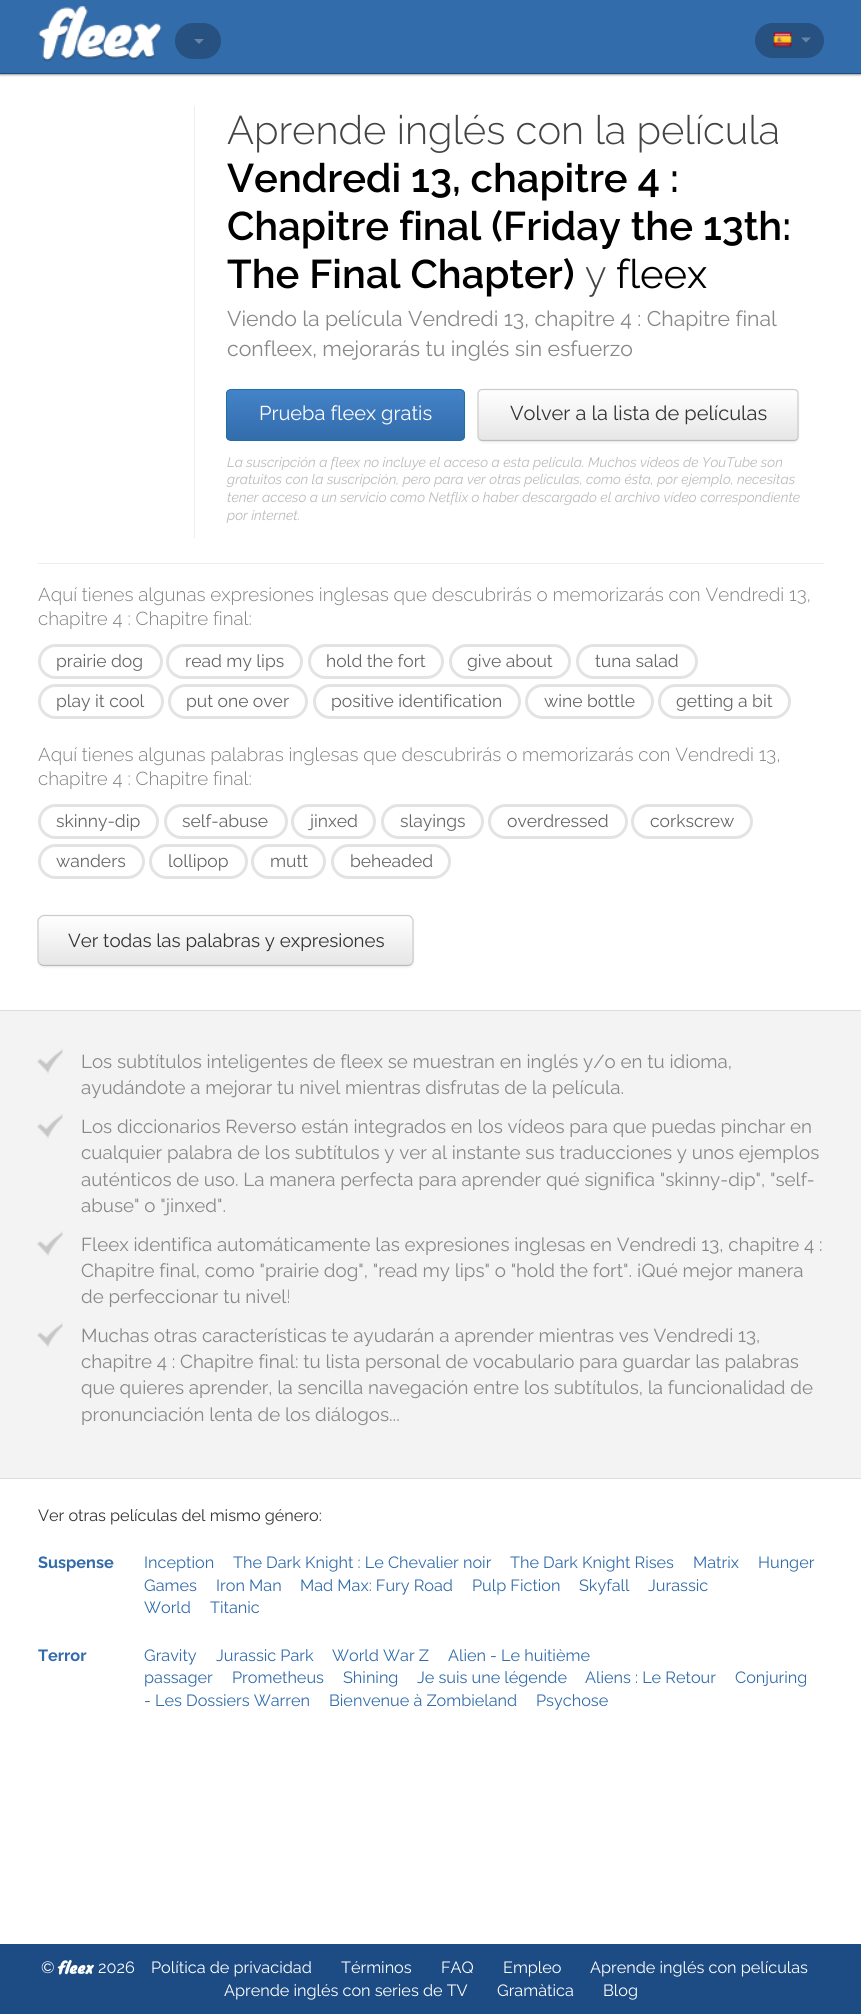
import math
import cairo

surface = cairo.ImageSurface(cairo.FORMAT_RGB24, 861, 2014)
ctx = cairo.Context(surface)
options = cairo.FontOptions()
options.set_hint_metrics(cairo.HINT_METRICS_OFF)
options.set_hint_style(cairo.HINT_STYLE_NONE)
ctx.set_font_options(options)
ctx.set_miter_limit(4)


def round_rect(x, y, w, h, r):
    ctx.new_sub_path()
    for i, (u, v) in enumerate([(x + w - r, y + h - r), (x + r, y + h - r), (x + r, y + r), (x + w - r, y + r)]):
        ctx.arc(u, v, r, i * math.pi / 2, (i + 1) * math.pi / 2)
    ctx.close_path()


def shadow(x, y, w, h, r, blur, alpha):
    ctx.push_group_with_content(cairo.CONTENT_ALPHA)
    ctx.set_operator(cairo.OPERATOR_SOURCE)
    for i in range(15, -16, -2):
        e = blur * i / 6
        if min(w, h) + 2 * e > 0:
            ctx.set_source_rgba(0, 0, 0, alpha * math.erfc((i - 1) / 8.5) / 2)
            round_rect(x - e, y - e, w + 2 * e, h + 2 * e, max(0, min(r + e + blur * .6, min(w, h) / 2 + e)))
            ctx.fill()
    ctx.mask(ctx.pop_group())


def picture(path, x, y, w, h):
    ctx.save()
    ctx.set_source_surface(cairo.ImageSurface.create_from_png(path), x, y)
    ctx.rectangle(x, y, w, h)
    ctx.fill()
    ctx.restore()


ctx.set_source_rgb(1, 1, 1)
ctx.paint()
ctx.set_source_rgb(0.616, 0.616, 0.616)
shadow(0, 1, 861, 74, 0, 1, 1)
ctx.set_source_rgb(0.196, 0.424, 0.671)
ctx.rectangle(0, 0, 861, 73)
ctx.fill()
ctx.set_source_rgb(0.114, 0.298, 0.518)
ctx.rectangle(0, 73, 861, 1)
ctx.fill()
picture("img1.png", 38, 6, 124, 56)
ctx.set_source_rgb(0.149, 0.318, 0.502)
round_rect(175, 23, 46, 36, 18)
ctx.fill()
ctx.set_source_rgb(0.404, 0.522, 0.651)
ctx.new_path()
ctx.move_to(194, 39)
ctx.line_to(204, 39)
ctx.line_to(199, 44)
ctx.close_path()
ctx.fill()
ctx.set_source_rgb(0.149, 0.318, 0.502)
round_rect(755, 23, 69, 35, 17.5)
ctx.fill()
picture("img2.png", 773, 32, 19, 16)
ctx.set_source_rgb(0.404, 0.522, 0.651)
ctx.new_path()
ctx.move_to(801, 37.5)
ctx.line_to(811, 37.5)
ctx.line_to(806, 42.5)
ctx.close_path()
ctx.fill()
ctx.set_source_rgb(0.933, 0.933, 0.933)
ctx.rectangle(194, 106, 1, 432)
ctx.fill()
ctx.select_font_face("Raleway Light")
ctx.set_font_size(40)
ctx.set_source_rgb(0.267, 0.267, 0.267)
ctx.move_to(227, 144)
ctx.show_text("Aprende inglés con la película")
ctx.select_font_face("Raleway SemiBold")
ctx.set_source_rgb(0, 0, 0)
ctx.move_to(227, 192)
ctx.show_text("Vendredi 13, chapitre 4 :")
ctx.move_to(227, 240)
ctx.show_text("Chapitre final (Friday the 13th:")
ctx.move_to(227, 288)
ctx.show_text("The Final Chapter)")
ctx.select_font_face("Raleway Light")
ctx.set_source_rgb(0.267, 0.267, 0.267)
ctx.move_to(585, 288)
ctx.show_text("y")
ctx.select_font_face("Raleway")
ctx.set_source_rgb(0, 0, 0)
ctx.move_to(616, 288)
ctx.show_text("fleex")
ctx.set_font_size(21.25)
ctx.set_source_rgb(0.533, 0.533, 0.533)
ctx.move_to(227, 326)
ctx.show_text("Viendo la película Vendredi 13, chapitre 4 : Chapitre final")
ctx.move_to(227, 356)
ctx.show_text("confleex, mejorarás tu inglés sin esfuerzo")
ctx.save()
round_rect(226, 389, 239, 52, 5)
ctx.clip()
gradient = cairo.LinearGradient(346, 390, 346, 440)
gradient.add_color_stop_rgba(0, 0.267, 0.514, 0.788, 1)
gradient.add_color_stop_rgba(1, 0.196, 0.424, 0.671, 1)
ctx.set_source(gradient)
ctx.rectangle(226, 390, 239, 50)
ctx.fill()
ctx.restore()
round_rect(226.5, 389.5, 238, 51, 4.5)
ctx.set_source_rgb(0.106, 0.439, 0.651)
ctx.set_line_width(1)
ctx.stroke()
ctx.set_font_size(20)
ctx.set_source_rgb(1, 1, 1)
ctx.move_to(259, 420)
ctx.show_text("Prueba fleex gratis")
ctx.set_source_rgb(0, 0, 0)
shadow(478, 390, 321, 53, 5, 1, 0.05)
ctx.save()
round_rect(478, 389, 321, 52, 5)
ctx.clip()
gradient = cairo.LinearGradient(638, 390, 638, 440)
gradient.add_color_stop_rgba(0, 1, 1, 1, 1)
gradient.add_color_stop_rgba(1, 0.902, 0.902, 0.902, 1)
ctx.set_source(gradient)
ctx.rectangle(478, 390, 321, 50)
ctx.fill()
ctx.restore()
ctx.new_path()
ctx.move_to(797, 439.5)
ctx.curve_to(796, 440, 795, 440.5, 794, 440.5)
ctx.line_to(482.5, 440.5)
ctx.curve_to(481.5, 440.5, 480, 440, 479.5, 439.5)
ctx.set_source_rgb(0.733, 0.733, 0.733)
ctx.set_line_width(1.2)
ctx.stroke()
ctx.new_path()
ctx.move_to(479.5, 439.5)
ctx.curve_to(478.5, 438.5, 478, 437.5, 478, 436)
ctx.line_to(478, 394)
ctx.curve_to(478, 392.5, 478.5, 391.5, 479.5, 390.5)
ctx.curve_to(480, 390, 481.5, 389.5, 482.5, 389.5)
ctx.line_to(794, 389.5)
ctx.curve_to(795, 389.5, 796, 390, 797, 390.5)
ctx.curve_to(797.5, 391.5, 798, 392.5, 798, 394)
ctx.line_to(798, 436)
ctx.curve_to(798, 437.5, 797.5, 438.5, 797, 439.5)
ctx.set_source_rgb(0.8, 0.8, 0.8)
ctx.stroke()
ctx.set_source_rgb(0.2, 0.2, 0.2)
ctx.move_to(510, 420)
ctx.show_text("Volver a la lista de películas")
ctx.select_font_face("Raleway", cairo.FONT_SLANT_ITALIC)
ctx.set_font_size(13.75)
ctx.set_source_rgb(0.733, 0.733, 0.733)
ctx.move_to(227, 467)
ctx.show_text("La suscripción a fleex no incluye el acceso a esta película. Muchos vídeos de YouTube son")
ctx.move_to(227, 484)
ctx.show_text("gratuitos con la suscripción, pero para ver otras películas, como ésta, por ejemplo, necesitas")
ctx.move_to(227, 502)
ctx.show_text("tener acceso a un servicio como Netflix o haber descargado el archivo vídeo correspondiente")
ctx.move_to(227, 520)
ctx.show_text("por internet.")
ctx.set_source_rgb(0.933, 0.933, 0.933)
ctx.rectangle(38, 563, 786, 1)
ctx.fill()
ctx.select_font_face("Raleway Light")
ctx.set_font_size(18.75)
ctx.set_source_rgb(0.502, 0.502, 0.502)
ctx.move_to(38, 601)
ctx.show_text("Aquí tienes algunas expresiones inglesas que descubrirás o memorizarás con Vendredi 13,")
ctx.move_to(38, 625)
ctx.show_text("chapitre 4 : Chapitre final:")
round_rect(39.5, 645.5, 122, 32, 16)
ctx.set_source_rgb(0.89, 0.89, 0.89)
ctx.set_line_width(3)
ctx.stroke()
ctx.select_font_face("Raleway")
ctx.set_font_size(17.5)
ctx.set_source_rgb(0.4, 0.4, 0.4)
ctx.move_to(56, 667)
ctx.show_text("prairie dog")
round_rect(167.5, 645.5, 134, 32, 16)
ctx.set_source_rgb(0.89, 0.89, 0.89)
ctx.stroke()
ctx.set_source_rgb(0.4, 0.4, 0.4)
ctx.move_to(185, 667)
ctx.show_text("read my lips")
round_rect(309.5, 645.5, 133, 32, 16)
ctx.set_source_rgb(0.89, 0.89, 0.89)
ctx.stroke()
ctx.set_source_rgb(0.4, 0.4, 0.4)
ctx.move_to(326, 667)
ctx.show_text("hold the fort")
round_rect(450.5, 645.5, 119, 32, 16)
ctx.set_source_rgb(0.89, 0.89, 0.89)
ctx.stroke()
ctx.set_source_rgb(0.4, 0.4, 0.4)
ctx.move_to(467, 667)
ctx.show_text("give about")
round_rect(577.5, 645.5, 119, 32, 16)
ctx.set_source_rgb(0.89, 0.89, 0.89)
ctx.stroke()
ctx.set_source_rgb(0.4, 0.4, 0.4)
ctx.move_to(595, 667)
ctx.show_text("tuna salad")
round_rect(39.5, 685.5, 123, 32, 16)
ctx.set_source_rgb(0.89, 0.89, 0.89)
ctx.stroke()
ctx.set_source_rgb(0.4, 0.4, 0.4)
ctx.move_to(56, 707)
ctx.show_text("play it cool")
round_rect(169.5, 685.5, 137, 32, 16)
ctx.set_source_rgb(0.89, 0.89, 0.89)
ctx.stroke()
ctx.set_source_rgb(0.4, 0.4, 0.4)
ctx.move_to(186, 707)
ctx.show_text("put one over")
round_rect(314.5, 685.5, 205, 32, 16)
ctx.set_source_rgb(0.89, 0.89, 0.89)
ctx.stroke()
ctx.set_source_rgb(0.4, 0.4, 0.4)
ctx.move_to(331, 707)
ctx.show_text("positive identification")
round_rect(526.5, 685.5, 126, 32, 16)
ctx.set_source_rgb(0.89, 0.89, 0.89)
ctx.stroke()
ctx.set_source_rgb(0.4, 0.4, 0.4)
ctx.move_to(544, 707)
ctx.show_text("wine bottle")
round_rect(659.5, 685.5, 130, 32, 16)
ctx.set_source_rgb(0.89, 0.89, 0.89)
ctx.stroke()
ctx.set_source_rgb(0.4, 0.4, 0.4)
ctx.move_to(676, 707)
ctx.show_text("getting a bit")
ctx.select_font_face("Raleway Light")
ctx.set_font_size(18.75)
ctx.set_source_rgb(0.502, 0.502, 0.502)
ctx.move_to(38, 761)
ctx.show_text("Aquí tienes algunas palabras inglesas que descubrirás o memorizarás con Vendredi 13,")
ctx.move_to(38, 785)
ctx.show_text("chapitre 4 : Chapitre final:")
round_rect(39.5, 805.5, 118, 32, 16)
ctx.set_source_rgb(0.89, 0.89, 0.89)
ctx.stroke()
ctx.select_font_face("Raleway")
ctx.set_font_size(17.5)
ctx.set_source_rgb(0.4, 0.4, 0.4)
ctx.move_to(56, 827)
ctx.show_text("skinny-dip")
round_rect(165.5, 805.5, 121, 32, 16)
ctx.set_source_rgb(0.89, 0.89, 0.89)
ctx.stroke()
ctx.set_source_rgb(0.4, 0.4, 0.4)
ctx.move_to(182, 827)
ctx.show_text("self-abuse")
round_rect(292.5, 805.5, 82, 32, 16)
ctx.set_source_rgb(0.89, 0.89, 0.89)
ctx.stroke()
ctx.set_source_rgb(0.4, 0.4, 0.4)
ctx.move_to(310, 827)
ctx.show_text("jinxed")
round_rect(382.5, 805.5, 100, 32, 16)
ctx.set_source_rgb(0.89, 0.89, 0.89)
ctx.stroke()
ctx.set_source_rgb(0.4, 0.4, 0.4)
ctx.move_to(400, 827)
ctx.show_text("slayings")
round_rect(489.5, 805.5, 137, 32, 16)
ctx.set_source_rgb(0.89, 0.89, 0.89)
ctx.stroke()
ctx.set_source_rgb(0.4, 0.4, 0.4)
ctx.move_to(507, 827)
ctx.show_text("overdressed")
round_rect(632.5, 805.5, 119, 32, 16)
ctx.set_source_rgb(0.89, 0.89, 0.89)
ctx.stroke()
ctx.set_source_rgb(0.4, 0.4, 0.4)
ctx.move_to(650, 827)
ctx.show_text("corkscrew")
round_rect(39.5, 845.5, 104, 32, 16)
ctx.set_source_rgb(0.89, 0.89, 0.89)
ctx.stroke()
ctx.set_source_rgb(0.4, 0.4, 0.4)
ctx.move_to(56, 867)
ctx.show_text("wanders")
round_rect(150.5, 845.5, 96, 32, 16)
ctx.set_source_rgb(0.89, 0.89, 0.89)
ctx.stroke()
ctx.set_source_rgb(0.4, 0.4, 0.4)
ctx.move_to(168, 867)
ctx.show_text("lollipop")
round_rect(252.5, 845.5, 72, 32, 16)
ctx.set_source_rgb(0.89, 0.89, 0.89)
ctx.stroke()
ctx.set_source_rgb(0.4, 0.4, 0.4)
ctx.move_to(270, 867)
ctx.show_text("mutt")
round_rect(332.5, 845.5, 117, 32, 16)
ctx.set_source_rgb(0.89, 0.89, 0.89)
ctx.stroke()
ctx.set_source_rgb(0.4, 0.4, 0.4)
ctx.move_to(350, 867)
ctx.show_text("beheaded")
ctx.set_source_rgb(0, 0, 0)
shadow(38, 916, 376, 52, 6, 1, 0.05)
ctx.set_source_rgb(0.961, 0.961, 0.961)
round_rect(38, 915, 376, 51, 6)
ctx.fill()
ctx.save()
round_rect(38, 915, 376, 51, 6)
ctx.clip()
gradient = cairo.LinearGradient(226, 916, 226, 965)
gradient.add_color_stop_rgba(0, 1, 1, 1, 1)
gradient.add_color_stop_rgba(1, 0.902, 0.902, 0.902, 1)
ctx.set_source(gradient)
ctx.rectangle(38, 916, 376, 49)
ctx.fill()
ctx.restore()
ctx.set_source_rgba(1, 1, 1, 0.2)
ctx.new_path()
ctx.move_to(44, 918)
ctx.line_to(408, 918)
ctx.curve_to(410, 918, 412, 920, 412, 922)
ctx.line_to(412, 961)
ctx.line_to(411, 964)
ctx.curve_to(412, 963, 413, 961, 413, 960)
ctx.line_to(413, 921)
ctx.curve_to(413, 918, 411, 916, 408, 916)
ctx.line_to(44, 916)
ctx.curve_to(41, 916, 39, 918, 39, 921)
ctx.line_to(39, 922)
ctx.curve_to(39, 920, 41, 918, 44, 918)
ctx.close_path()
ctx.fill()
ctx.new_path()
ctx.move_to(411.5, 964)
ctx.curve_to(410.5, 965, 409, 965.5, 407.5, 965.5)
ctx.line_to(44, 965.5)
ctx.curve_to(42.5, 965.5, 41, 965, 40, 964)
ctx.set_source_rgb(0.733, 0.733, 0.733)
ctx.set_line_width(1.2)
ctx.stroke()
ctx.new_path()
ctx.move_to(40, 964)
ctx.curve_to(38.5, 963, 38, 961.5, 38, 960)
ctx.line_to(38, 921)
ctx.curve_to(38, 920, 38.5, 918.5, 40, 917.5)
ctx.curve_to(41, 916, 42.5, 915.5, 44, 915.5)
ctx.line_to(407.5, 915.5)
ctx.curve_to(409, 915.5, 410.5, 916, 411.5, 917.5)
ctx.curve_to(412.5, 918.5, 413, 920, 413, 921)
ctx.line_to(413, 960)
ctx.curve_to(413, 961.5, 412.5, 963, 411.5, 964)
ctx.set_source_rgb(0.8, 0.8, 0.8)
ctx.stroke()
ctx.set_font_size(18.75)
ctx.set_source_rgb(0.2, 0.2, 0.2)
ctx.move_to(68, 947)
ctx.show_text("Ver todas las palabras y expresiones")
ctx.set_source_rgb(0.953, 0.953, 0.953)
ctx.rectangle(0, 1011, 861, 467)
ctx.fill()
ctx.set_source_rgb(0.867, 0.867, 0.867)
ctx.rectangle(0, 1010, 861, 1)
ctx.fill()
picture("img3.png", 37, 1049, 26, 25)
ctx.set_source_rgb(0.533, 0.533, 0.533)
ctx.move_to(81, 1068)
ctx.show_text("Los subtítulos inteligentes de fleex se muestran en inglés y/o en tu idioma,")
ctx.move_to(81, 1094)
ctx.show_text("ayudándote a mejorar tu nivel mientras disfrutas de la película.")
picture("img3.png", 37, 1114, 26, 25)
ctx.move_to(81, 1133)
ctx.show_text("Los diccionarios Reverso están integrados en los vídeos para que puedas pinchar en")
ctx.move_to(81, 1159)
ctx.show_text("cualquier palabra de los subtítulos y ver al instante sus traducciones y unos ejemplos")
ctx.move_to(81, 1186)
ctx.show_text("auténticos de uso. La manera perfecta para aprender qué significa \"skinny-dip\", \"self-")
ctx.move_to(81, 1212)
ctx.show_text("abuse\" o \"jinxed\".")
picture("img4.png", 37, 1231, 26, 25)
ctx.move_to(81, 1251)
ctx.show_text("Fleex identifica automáticamente las expresiones inglesas en Vendredi 13, chapitre 4 :")
ctx.move_to(81, 1277)
ctx.show_text("Chapitre final, como \"prairie dog\", \"read my lips\" o \"hold the fort\". ¡Qué mejor manera")
ctx.move_to(81, 1303)
ctx.show_text("de perfeccionar tu nivel!")
picture("img5.png", 37, 1322, 26, 26)
ctx.move_to(81, 1342)
ctx.show_text("Muchas otras características te ayudarán a aprender mientras ves Vendredi 13,")
ctx.move_to(81, 1368)
ctx.show_text("chapitre 4 : Chapitre final: tu lista personal de vocabulario para guardar las palabras")
ctx.move_to(81, 1394)
ctx.show_text("que quieres aprender, la sencilla navegación entre los subtítulos, la funcionalidad de")
ctx.move_to(81, 1421)
ctx.show_text("pronunciación lenta de los diálogos...")
ctx.set_source_rgb(0.867, 0.867, 0.867)
ctx.rectangle(0, 1478, 861, 1)
ctx.fill()
ctx.set_font_size(16.25)
ctx.set_source_rgb(0.2, 0.2, 0.2)
ctx.move_to(38, 1521)
ctx.show_text("Ver otras películas del mismo género:")
ctx.select_font_face("Raleway", cairo.FONT_SLANT_NORMAL, cairo.FONT_WEIGHT_BOLD)
ctx.set_source_rgb(0.196, 0.424, 0.671)
ctx.move_to(38, 1568)
ctx.show_text("Suspense")
ctx.select_font_face("Raleway")
ctx.move_to(144, 1568)
ctx.show_text("Inception")
ctx.move_to(233, 1568)
ctx.show_text("The Dark Knight : Le Chevalier noir")
ctx.move_to(510, 1568)
ctx.show_text("The Dark Knight Rises")
ctx.move_to(693, 1568)
ctx.show_text("Matrix")
ctx.move_to(758, 1568)
ctx.show_text("Hunger")
ctx.move_to(144, 1591)
ctx.show_text("Games")
ctx.move_to(216, 1591)
ctx.show_text("Iron Man")
ctx.move_to(300, 1591)
ctx.show_text("Mad Max: Fury Road")
ctx.move_to(472, 1591)
ctx.show_text("Pulp Fiction")
ctx.move_to(579, 1591)
ctx.show_text("Skyfall")
ctx.move_to(648, 1591)
ctx.show_text("Jurassic")
ctx.move_to(144, 1613)
ctx.show_text("World")
ctx.move_to(210, 1613)
ctx.show_text("Titanic")
ctx.select_font_face("Raleway", cairo.FONT_SLANT_NORMAL, cairo.FONT_WEIGHT_BOLD)
ctx.move_to(38, 1661)
ctx.show_text("Terror")
ctx.select_font_face("Raleway")
ctx.move_to(144, 1661)
ctx.show_text("Gravity")
ctx.move_to(216, 1661)
ctx.show_text("Jurassic Park")
ctx.move_to(332, 1661)
ctx.show_text("World War Z")
ctx.move_to(448, 1661)
ctx.show_text("Alien - Le huitième")
ctx.move_to(144, 1683)
ctx.show_text("passager")
ctx.move_to(232, 1683)
ctx.show_text("Prometheus")
ctx.move_to(343, 1683)
ctx.show_text("Shining")
ctx.move_to(417, 1683)
ctx.show_text("Je suis une légende")
ctx.move_to(585, 1683)
ctx.show_text("Aliens : Le Retour")
ctx.move_to(735, 1683)
ctx.show_text("Conjuring")
ctx.move_to(144, 1706)
ctx.show_text("- Les Dossiers Warren")
ctx.move_to(329, 1706)
ctx.show_text("Bienvenue à Zombieland")
ctx.move_to(536, 1706)
ctx.show_text("Psychose")
ctx.set_source_rgb(0.114, 0.298, 0.518)
ctx.rectangle(0, 1944, 861, 70)
ctx.fill()
ctx.set_source_rgb(1, 1, 1)
ctx.move_to(41, 1973)
ctx.show_text("©")
ctx.select_font_face("Knewave")
ctx.move_to(58, 1973)
ctx.show_text("fleex")
ctx.select_font_face("Raleway")
ctx.move_to(98, 1973)
ctx.show_text("2026")
ctx.move_to(151, 1973)
ctx.show_text("Política de privacidad")
ctx.move_to(341, 1973)
ctx.show_text("Términos")
ctx.move_to(441, 1973)
ctx.show_text("FAQ")
ctx.move_to(503, 1973)
ctx.show_text("Empleo")
ctx.move_to(590, 1973)
ctx.show_text("Aprende inglés con películas")
ctx.move_to(224, 1996)
ctx.show_text("Aprende inglés con series de TV")
ctx.move_to(497, 1996)
ctx.show_text("Gramàtica")
ctx.move_to(603, 1996)
ctx.show_text("Blog")
surface.write_to_png("page.png")
